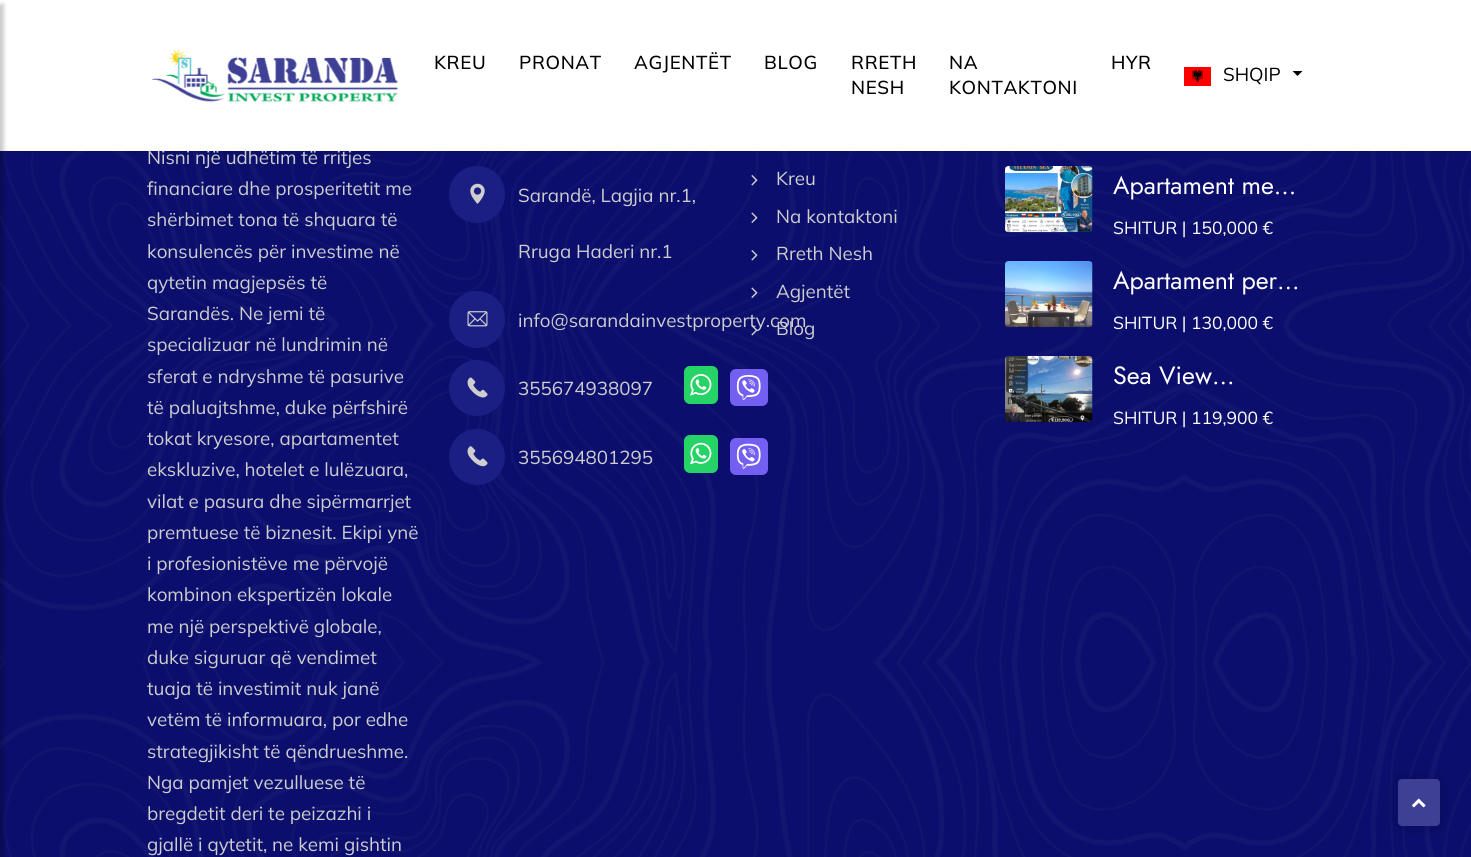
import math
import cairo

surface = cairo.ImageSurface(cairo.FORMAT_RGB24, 1471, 857)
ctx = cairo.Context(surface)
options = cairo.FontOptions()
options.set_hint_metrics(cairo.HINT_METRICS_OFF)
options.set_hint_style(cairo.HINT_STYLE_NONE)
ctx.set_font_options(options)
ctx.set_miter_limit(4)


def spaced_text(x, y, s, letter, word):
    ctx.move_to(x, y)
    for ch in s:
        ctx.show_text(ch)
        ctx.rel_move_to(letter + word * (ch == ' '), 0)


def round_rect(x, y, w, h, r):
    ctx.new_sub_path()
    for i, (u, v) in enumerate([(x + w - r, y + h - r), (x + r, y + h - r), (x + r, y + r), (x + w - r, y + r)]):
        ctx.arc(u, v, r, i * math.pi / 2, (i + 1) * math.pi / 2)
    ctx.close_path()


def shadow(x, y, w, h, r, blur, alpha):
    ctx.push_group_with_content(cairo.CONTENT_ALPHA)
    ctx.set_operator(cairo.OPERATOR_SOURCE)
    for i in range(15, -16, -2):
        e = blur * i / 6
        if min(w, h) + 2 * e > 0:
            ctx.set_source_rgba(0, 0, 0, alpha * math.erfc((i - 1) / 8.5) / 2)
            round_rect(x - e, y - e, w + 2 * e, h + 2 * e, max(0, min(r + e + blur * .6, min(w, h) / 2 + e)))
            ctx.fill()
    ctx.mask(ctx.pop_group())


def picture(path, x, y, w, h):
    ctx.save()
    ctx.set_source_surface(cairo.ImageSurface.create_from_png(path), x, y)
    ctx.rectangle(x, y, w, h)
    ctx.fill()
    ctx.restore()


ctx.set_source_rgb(1, 1, 1)
ctx.paint()
picture("img3.png", 0, 151, 1471, 706)
ctx.set_source_rgb(0, 0, 0)
shadow(0, 0, 1471, 151, 0, 3, 0.1)
ctx.set_source_rgb(1, 1, 1)
ctx.rectangle(0, 0, 1471, 150)
ctx.fill()
ctx.select_font_face("Mulish")
ctx.set_font_size(18.75)
ctx.set_source_rgb(0.808, 0.808, 0.808)
ctx.move_to(147, 164)
ctx.show_text("Nisni një udhëtim të rritjes")
ctx.set_source_rgb(0.973, 0.973, 0.973)
ctx.rectangle(0, 150, 1471, 1)
ctx.fill()
ctx.set_source_rgb(0, 0, 0)
shadow(-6, 4, 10, 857, 0, 2, 0.2)
picture("img1.png", 151, 49, 247, 53)
ctx.select_font_face("Mulish Medium")
ctx.set_source_rgb(0, 0, 0)
spaced_text(434, 69, "KREU", 0.6, 0)
spaced_text(519, 69, "PRONAT", 0.6, 0)
spaced_text(634, 69, "AGJENTËT", 0.6, 0)
spaced_text(764, 69, "BLOG", 0.6, 0)
spaced_text(851, 69, "RRETH", 0.6, 0)
spaced_text(851, 94, "NESH", 0.6, 0)
spaced_text(949, 69, "NA", 0.6, 0)
spaced_text(949, 94, "KONTAKTONI", 0.6, 0)
spaced_text(1111, 69, "HYR", 0.6, 0)
picture("img2.png", 1184, 67, 27, 19)
ctx.select_font_face("Mulish")
ctx.move_to(1223, 81)
ctx.show_text("SHQIP")
ctx.new_path()
ctx.move_to(1292.5, 71)
ctx.line_to(1302.5, 71)
ctx.line_to(1297.5, 76)
ctx.close_path()
ctx.fill()
ctx.set_source_rgb(0.808, 0.808, 0.808)
ctx.move_to(147, 195)
ctx.show_text("financiare dhe prosperitetit me")
ctx.move_to(147, 226)
ctx.show_text("shërbimet tona të shquara të")
ctx.move_to(147, 258)
ctx.show_text("konsulencës për investime në")
ctx.move_to(147, 289)
ctx.show_text("qytetin magjepsës të")
ctx.move_to(147, 320)
ctx.show_text("Sarandës. Ne jemi të")
ctx.move_to(147, 351)
ctx.show_text("specializuar në lundrimin në")
ctx.move_to(147, 383)
ctx.show_text("sferat e ndryshme të pasurive")
ctx.move_to(147, 414)
ctx.show_text("të paluajtshme, duke përfshirë")
ctx.move_to(147, 445)
ctx.show_text("tokat kryesore, apartamentet")
ctx.move_to(147, 476)
ctx.show_text("ekskluzive, hotelet e lulëzuara,")
ctx.move_to(147, 508)
ctx.show_text("vilat e pasura dhe sipërmarrjet")
ctx.move_to(147, 539)
ctx.show_text("premtuese të biznesit. Ekipi ynë")
ctx.move_to(147, 570)
ctx.show_text("i profesionistëve me përvojë")
ctx.move_to(147, 601)
ctx.show_text("kombinon ekspertizën lokale")
ctx.move_to(147, 633)
ctx.show_text("me një perspektivë globale,")
ctx.move_to(147, 664)
ctx.show_text("duke siguruar që vendimet")
ctx.move_to(147, 695)
ctx.show_text("tuaja të investimit nuk janë")
ctx.move_to(147, 726)
ctx.show_text("vetëm të informuara, por edhe")
ctx.move_to(147, 758)
ctx.show_text("strategjikisht të qëndrueshme.")
ctx.move_to(147, 789)
ctx.show_text("Nga pamjet vezulluese të")
ctx.move_to(147, 820)
ctx.show_text("bregdetit deri te peizazhi i")
ctx.move_to(147, 851)
ctx.show_text("gjallë i qytetit, ne kemi gishtin")
ctx.set_source_rgb(0.106, 0.118, 0.514)
round_rect(449, 166, 56, 57, 28)
ctx.fill()
picture("img4.png", 470, 183, 15, 21)
ctx.set_source_rgb(0.808, 0.808, 0.808)
ctx.move_to(518, 202)
ctx.show_text("Sarandë, Lagjia nr.1,")
ctx.move_to(518, 258)
ctx.show_text("Rruga Haderi nr.1")
ctx.set_source_rgb(0.106, 0.118, 0.514)
round_rect(449, 291, 56, 57, 28)
ctx.fill()
picture("img5.png", 467, 311, 21, 16)
ctx.set_source_rgb(0.808, 0.808, 0.808)
ctx.move_to(518, 327)
ctx.show_text("info@sarandainvestproperty.com")
ctx.set_source_rgb(0.106, 0.118, 0.514)
ctx.new_path()
ctx.arc(477, 388, 28, 0, 2 * math.pi)
ctx.fill()
picture("img6.png", 467, 377, 21, 21)
ctx.set_source_rgb(0.808, 0.808, 0.808)
ctx.move_to(518, 395)
ctx.show_text("355674938097")
ctx.set_source_rgb(0.145, 0.827, 0.4)
round_rect(684, 366, 34, 38, 6)
ctx.fill()
picture("img7.png", 690, 374, 22, 22)
ctx.set_source_rgb(0.451, 0.376, 0.949)
round_rect(730, 369, 38, 37, 6)
ctx.fill()
picture("img8.png", 736, 375, 25, 25)
ctx.set_source_rgb(0.106, 0.118, 0.514)
ctx.arc(477, 457, 28, 0, 2 * math.pi)
ctx.fill()
picture("img9.png", 467, 446, 21, 21)
ctx.set_source_rgb(0.808, 0.808, 0.808)
ctx.move_to(518, 464)
ctx.show_text("355694801295")
ctx.set_source_rgb(0.145, 0.827, 0.4)
round_rect(684, 435, 34, 38, 6)
ctx.fill()
picture("img10.png", 690, 442, 22, 23)
ctx.set_source_rgb(0.451, 0.376, 0.949)
round_rect(730, 438, 38, 37, 6)
ctx.fill()
picture("img11.png", 736, 443, 25, 26)
picture("img12.png", 751, 175, 7, 11)
ctx.set_source_rgb(0.808, 0.808, 0.808)
ctx.move_to(776, 185)
ctx.show_text("Kreu")
picture("img13.png", 751, 212, 7, 11)
ctx.move_to(776, 223)
ctx.show_text("Na kontaktoni")
picture("img14.png", 751, 250, 7, 11)
ctx.move_to(776, 260)
ctx.show_text("Rreth Nesh")
picture("img15.png", 751, 287, 7, 11)
ctx.move_to(776, 298)
ctx.show_text("Agjentët")
picture("img16.png", 751, 325, 7, 11)
ctx.move_to(776, 335)
ctx.show_text("Blog")
picture("img17.png", 1005, 166, 88, 67)
ctx.select_font_face("Jost")
ctx.set_font_size(25)
ctx.set_source_rgb(1, 1, 1)
ctx.move_to(1113, 194)
ctx.show_text("Apartament me…")
ctx.select_font_face("Mulish")
ctx.set_font_size(17.5)
ctx.move_to(1113, 234)
ctx.show_text("SHITUR | 150,000 €")
picture("img18.png", 1005, 261, 88, 67)
ctx.select_font_face("Jost")
ctx.set_font_size(25)
ctx.move_to(1113, 289)
ctx.show_text("Apartament per…")
ctx.select_font_face("Mulish")
ctx.set_font_size(17.5)
ctx.move_to(1113, 329)
ctx.show_text("SHITUR | 130,000 €")
picture("img19.png", 1005, 356, 88, 67)
ctx.select_font_face("Jost")
ctx.set_font_size(25)
ctx.move_to(1113, 384)
ctx.show_text("Sea View…")
ctx.select_font_face("Mulish")
ctx.set_font_size(17.5)
ctx.move_to(1113, 424)
ctx.show_text("SHITUR | 119,900 €")
ctx.set_source_rgb(0, 0, 0)
shadow(1398, 779, 42, 47, 4, 7.5, 0.2)
ctx.set_source_rgb(0.243, 0.251, 0.584)
round_rect(1398, 779, 42, 47, 4)
ctx.fill()
picture("img20.png", 1412, 798, 14, 10)
surface.write_to_png("page.png")
